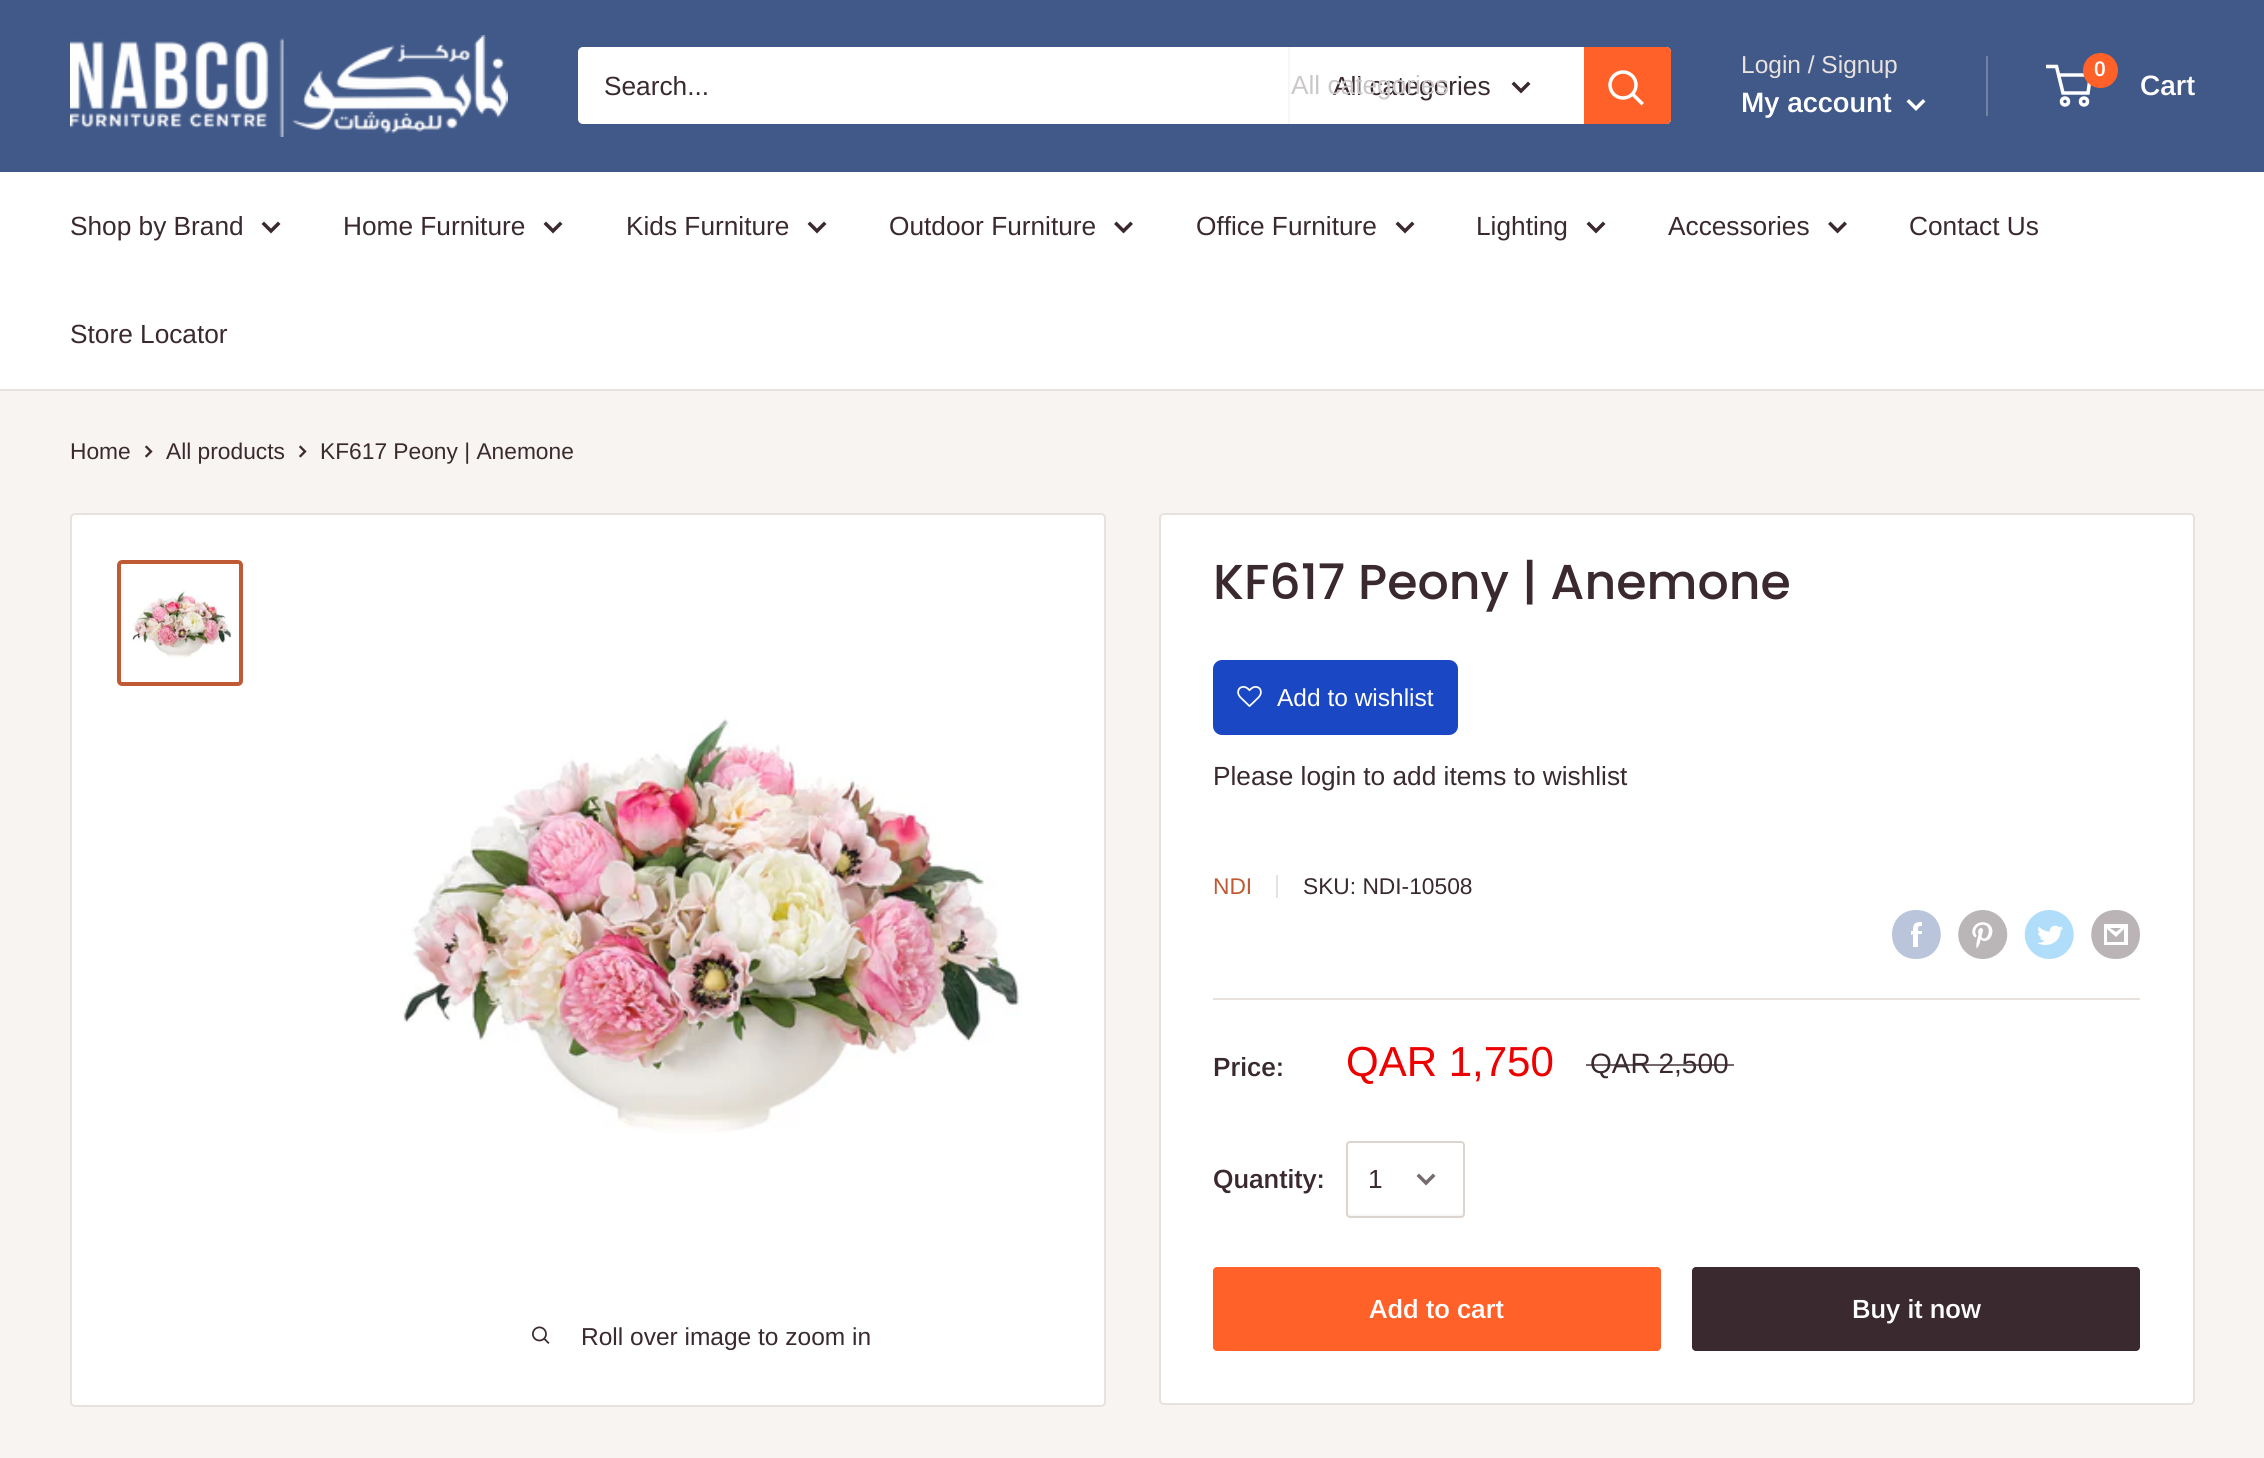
import math
import cairo

surface = cairo.ImageSurface(cairo.FORMAT_RGB24, 2264, 1458)
ctx = cairo.Context(surface)
options = cairo.FontOptions()
options.set_hint_metrics(cairo.HINT_METRICS_OFF)
options.set_hint_style(cairo.HINT_STYLE_NONE)
ctx.set_font_options(options)
ctx.set_miter_limit(4)


def round_rect(x, y, w, h, r):
    ctx.new_sub_path()
    for i, (u, v) in enumerate([(x + w - r, y + h - r), (x + r, y + h - r), (x + r, y + r), (x + w - r, y + r)]):
        ctx.arc(u, v, r, i * math.pi / 2, (i + 1) * math.pi / 2)
    ctx.close_path()


def picture(path, x, y, w, h):
    ctx.save()
    ctx.set_source_surface(cairo.ImageSurface.create_from_png(path), x, y)
    ctx.rectangle(x, y, w, h)
    ctx.fill()
    ctx.restore()


ctx.set_source_rgb(0.969, 0.957, 0.949)
ctx.paint()
ctx.set_source_rgb(0.255, 0.349, 0.537)
ctx.rectangle(0, 0, 2264, 172)
ctx.fill()
picture("img1.png", 70, 35, 438, 102)
ctx.set_source_rgb(1, 1, 1)
round_rect(578, 47, 1093, 77, 5)
ctx.fill()
ctx.select_font_face("Arimo")
ctx.set_font_size(26.25)
ctx.set_source_rgb(0.227, 0.165, 0.184)
ctx.move_to(604, 95)
ctx.show_text("Search...")
ctx.set_source_rgb(0.973, 0.965, 0.961)
ctx.rectangle(1288, 47, 2, 77)
ctx.fill()
ctx.set_source_rgb(0.227, 0.165, 0.184)
ctx.move_to(1333, 95)
ctx.show_text("All categories")
ctx.set_source_rgb(0.8, 0.784, 0.788)
ctx.move_to(1291, 94)
ctx.show_text("All categories")
ctx.new_path()
ctx.move_to(1528, 84)
ctx.line_to(1521, 91)
ctx.line_to(1514, 84)
ctx.set_source_rgb(0.227, 0.165, 0.184)
ctx.set_line_width(3.5)
ctx.set_line_cap(cairo.LINE_CAP_SQUARE)
ctx.stroke()
ctx.set_source_rgb(1, 0.38, 0.157)
ctx.new_path()
ctx.move_to(1584, 47)
ctx.line_to(1666, 47)
ctx.curve_to(1669, 47, 1671, 49, 1671, 52)
ctx.line_to(1671, 119)
ctx.curve_to(1671, 122, 1669, 124, 1666, 124)
ctx.line_to(1584, 124)
ctx.close_path()
ctx.fill()
ctx.new_path()
ctx.move_to(1641.5, 103)
ctx.line_to(1633, 94.5)
ctx.set_source_rgb(1, 1, 1)
ctx.stroke()
ctx.arc(1623, 85, 13, 0, 2 * math.pi)
ctx.set_line_cap(cairo.LINE_CAP_BUTT)
ctx.stroke()
ctx.set_font_size(24.5)
ctx.set_source_rgb(0.914, 0.886, 0.867)
ctx.move_to(1741, 73)
ctx.show_text("Login / Signup")
ctx.set_source_rgb(0.451, 0.51, 0.635)
ctx.rectangle(1986, 56, 2, 60)
ctx.fill()
ctx.select_font_face("Arimo SemiBold")
ctx.set_font_size(28)
ctx.set_source_rgb(1, 1, 1)
ctx.move_to(1741, 112)
ctx.show_text("My account")
ctx.new_path()
ctx.move_to(1923, 101.5)
ctx.line_to(1916, 108.5)
ctx.line_to(1909, 101.5)
ctx.set_line_cap(cairo.LINE_CAP_SQUARE)
ctx.stroke()
ctx.arc(2065, 101.5, 3.5, 0, 2 * math.pi)
ctx.set_line_cap(cairo.LINE_CAP_BUTT)
ctx.stroke()
ctx.arc(2084, 101.5, 3.5, 0, 2 * math.pi)
ctx.stroke()
ctx.new_path()
ctx.move_to(2058.5, 75)
ctx.line_to(2090.5, 75)
ctx.line_to(2088, 93)
ctx.line_to(2063, 93)
ctx.line_to(2056.5, 66.5)
ctx.line_to(2046, 66.5)
ctx.stroke()
ctx.set_source_rgb(1, 0.38, 0.157)
ctx.arc(2100.5, 70.5, 17.5, 0, 2 * math.pi)
ctx.fill()
ctx.set_font_size(21)
ctx.set_source_rgb(1, 1, 1)
ctx.move_to(2094, 76)
ctx.show_text("0")
ctx.set_font_size(28)
ctx.move_to(2140, 95)
ctx.show_text("Cart")
ctx.rectangle(0, 172, 2264, 217)
ctx.fill()
ctx.set_source_rgb(0.906, 0.886, 0.871)
ctx.rectangle(0, 389, 2264, 2)
ctx.fill()
ctx.select_font_face("Arimo")
ctx.set_font_size(26.25)
ctx.set_source_rgb(0.227, 0.165, 0.184)
ctx.move_to(70, 235)
ctx.show_text("Shop by Brand")
ctx.new_path()
ctx.move_to(278, 224)
ctx.line_to(271, 231)
ctx.line_to(264, 224)
ctx.set_line_cap(cairo.LINE_CAP_SQUARE)
ctx.stroke()
ctx.move_to(343, 235)
ctx.show_text("Home Furniture")
ctx.new_path()
ctx.move_to(560, 224)
ctx.line_to(553, 231)
ctx.line_to(546, 224)
ctx.stroke()
ctx.move_to(626, 235)
ctx.show_text("Kids Furniture")
ctx.new_path()
ctx.move_to(824, 224)
ctx.line_to(817, 231)
ctx.line_to(810, 224)
ctx.stroke()
ctx.move_to(889, 235)
ctx.show_text("Outdoor Furniture")
ctx.new_path()
ctx.move_to(1130.5, 224)
ctx.line_to(1123.5, 231)
ctx.line_to(1116.5, 224)
ctx.stroke()
ctx.move_to(1196, 235)
ctx.show_text("Office Furniture")
ctx.new_path()
ctx.move_to(1412, 224)
ctx.line_to(1405, 231)
ctx.line_to(1398, 224)
ctx.stroke()
ctx.move_to(1476, 235)
ctx.show_text("Lighting")
ctx.new_path()
ctx.move_to(1603, 224)
ctx.line_to(1596, 231)
ctx.line_to(1589, 224)
ctx.stroke()
ctx.move_to(1668, 235)
ctx.show_text("Accessories")
ctx.new_path()
ctx.move_to(1844.5, 224)
ctx.line_to(1837.5, 231)
ctx.line_to(1830.5, 224)
ctx.stroke()
ctx.move_to(1909, 235)
ctx.show_text("Contact Us")
ctx.move_to(70, 343)
ctx.show_text("Store Locator")
ctx.set_font_size(22.75)
ctx.move_to(70, 459)
ctx.show_text("Home")
ctx.new_path()
ctx.move_to(146.5, 447)
ctx.line_to(151, 451.5)
ctx.line_to(146.5, 456)
ctx.set_line_width(2.3)
ctx.stroke()
ctx.move_to(166, 459)
ctx.show_text("All products")
ctx.new_path()
ctx.move_to(300.5, 447)
ctx.line_to(305, 451.5)
ctx.line_to(300.5, 456)
ctx.stroke()
ctx.move_to(320, 459)
ctx.show_text("KF617 Peony | Anemone")
ctx.set_source_rgb(1, 1, 1)
round_rect(1160, 514, 1034, 890, 4)
ctx.fill_preserve()
ctx.set_source_rgb(0.906, 0.886, 0.871)
ctx.set_line_width(2)
ctx.set_line_cap(cairo.LINE_CAP_BUTT)
ctx.stroke()
ctx.select_font_face("Poppins Medium")
ctx.set_font_size(49)
ctx.set_source_rgb(0.227, 0.165, 0.184)
ctx.move_to(1213, 599)
ctx.show_text("KF617 Peony | Anemone")
ctx.set_source_rgb(0.102, 0.278, 0.769)
round_rect(1213, 660, 245, 75, 9)
ctx.fill()
picture("img2.png", 1237, 686, 25, 21)
ctx.select_font_face("Arimo")
ctx.set_font_size(24.5)
ctx.set_source_rgb(1, 1, 1)
ctx.move_to(1277, 706)
ctx.show_text("Add to wishlist")
ctx.set_font_size(26.25)
ctx.set_source_rgb(0.227, 0.165, 0.184)
ctx.move_to(1213, 785)
ctx.show_text("Please login to add items to wishlist")
ctx.set_font_size(22.75)
ctx.set_source_rgb(0.753, 0.353, 0.208)
ctx.move_to(1213, 894)
ctx.show_text("NDI")
ctx.set_source_rgb(0.906, 0.886, 0.871)
ctx.rectangle(1276, 875, 2, 23)
ctx.fill()
ctx.set_source_rgb(0.227, 0.165, 0.184)
ctx.move_to(1303, 894)
ctx.show_text("SKU: NDI-10508")
ctx.set_source_rgb(0.729, 0.773, 0.859)
ctx.set_fill_rule(cairo.FILL_RULE_EVEN_ODD)
ctx.new_path()
ctx.move_to(1916, 959)
ctx.curve_to(1884, 959, 1884, 910, 1916, 910)
ctx.curve_to(1949, 910, 1949, 959, 1916, 959)
ctx.close_path()
ctx.move_to(1922, 931)
ctx.line_to(1918, 931)
ctx.curve_to(1918, 927, 1917, 926, 1922, 926)
ctx.line_to(1922, 922)
ctx.curve_to(1914, 922, 1913, 924, 1913, 931)
ctx.line_to(1911, 931)
ctx.line_to(1911, 935)
ctx.line_to(1913, 934)
ctx.line_to(1913, 947)
ctx.line_to(1918, 947)
ctx.line_to(1918, 934)
ctx.line_to(1922, 934)
ctx.close_path()
ctx.fill()
picture("img3.png", 1958, 910, 50, 49)
picture("img4.png", 2024, 910, 50, 49)
ctx.set_source_rgb(0.729, 0.706, 0.714)
ctx.set_fill_rule(cairo.FILL_RULE_WINDING)
ctx.new_path()
ctx.move_to(2116, 959)
ctx.curve_to(2083, 959, 2083, 910, 2116, 910)
ctx.curve_to(2148, 910, 2148, 959, 2116, 959)
ctx.close_path()
ctx.move_to(2110, 928)
ctx.line_to(2121, 928)
ctx.line_to(2116, 932)
ctx.close_path()
ctx.move_to(2124, 929)
ctx.line_to(2124, 942)
ctx.line_to(2107, 942)
ctx.line_to(2107, 929)
ctx.line_to(2116, 937)
ctx.close_path()
ctx.move_to(2128, 924)
ctx.line_to(2104, 924)
ctx.line_to(2104, 945)
ctx.line_to(2128, 945)
ctx.close_path()
ctx.fill()
ctx.set_source_rgb(0.906, 0.886, 0.871)
ctx.rectangle(1213, 998, 927, 2)
ctx.fill()
ctx.select_font_face("Arimo SemiBold")
ctx.set_font_size(26.25)
ctx.set_source_rgb(0.227, 0.165, 0.184)
ctx.move_to(1213, 1076)
ctx.show_text("Price:")
ctx.select_font_face("Arimo")
ctx.set_font_size(42)
ctx.set_source_rgb(0.933, 0, 0)
ctx.move_to(1346, 1076)
ctx.show_text("QAR 1,750")
ctx.set_font_size(28)
ctx.set_source_rgb(0.227, 0.165, 0.184)
ctx.move_to(1590, 1073)
ctx.show_text("QAR 2,500")
ctx.set_source_rgba(0.227, 0.165, 0.184, 0.7)
ctx.rectangle(1586, 1064, 148, 2)
ctx.fill()
ctx.select_font_face("Arimo SemiBold")
ctx.set_font_size(26.25)
ctx.set_source_rgb(0.227, 0.165, 0.184)
ctx.move_to(1213, 1188)
ctx.show_text("Quantity:")
ctx.set_source_rgb(0.973, 0.965, 0.961)
ctx.new_path()
ctx.move_to(1348, 1213)
ctx.curve_to(1348, 1214, 1348, 1216, 1350, 1216)
ctx.line_to(1461, 1216)
ctx.curve_to(1463, 1216, 1463, 1214, 1463, 1213)
ctx.curve_to(1463, 1214, 1462, 1214, 1461, 1214)
ctx.line_to(1348, 1214)
ctx.close_path()
ctx.fill()
round_rect(1347, 1142, 117, 75, 3)
ctx.set_source_rgb(0.863, 0.835, 0.812)
ctx.stroke()
ctx.select_font_face("Arimo")
ctx.set_source_rgb(0.227, 0.165, 0.184)
ctx.move_to(1368, 1188)
ctx.show_text("1")
ctx.new_path()
ctx.move_to(1433, 1176)
ctx.line_to(1426, 1183)
ctx.line_to(1419, 1176)
ctx.set_source_rgb(0.459, 0.416, 0.427)
ctx.set_line_width(3.5)
ctx.set_line_cap(cairo.LINE_CAP_SQUARE)
ctx.stroke()
ctx.set_source_rgb(1, 0.38, 0.157)
round_rect(1213, 1267, 448, 84, 4)
ctx.fill()
ctx.select_font_face("Arimo SemiBold")
ctx.set_source_rgb(1, 1, 1)
ctx.move_to(1369, 1318)
ctx.show_text("Add to cart")
ctx.set_source_rgb(0.227, 0.165, 0.184)
round_rect(1692, 1267, 448, 84, 4)
ctx.fill()
ctx.set_source_rgb(1, 1, 1)
ctx.move_to(1852, 1318)
ctx.show_text("Buy it now")
round_rect(71, 514, 1034, 892, 4)
ctx.fill_preserve()
ctx.set_source_rgb(0.906, 0.886, 0.871)
ctx.set_line_width(2)
ctx.set_line_cap(cairo.LINE_CAP_BUTT)
ctx.stroke()
round_rect(119, 562, 122, 122, 3)
ctx.set_source_rgb(0.753, 0.353, 0.208)
ctx.set_line_width(4)
ctx.stroke()
picture("img5.png", 132, 590, 100, 68)
picture("img6.png", 401, 716, 621, 417)
picture("img7.png", 532, 1326, 18, 18)
ctx.select_font_face("Arimo")
ctx.set_font_size(24.5)
ctx.set_source_rgb(0.227, 0.165, 0.184)
ctx.move_to(581, 1345)
ctx.show_text("Roll over image to zoom in")
surface.write_to_png("page.png")
